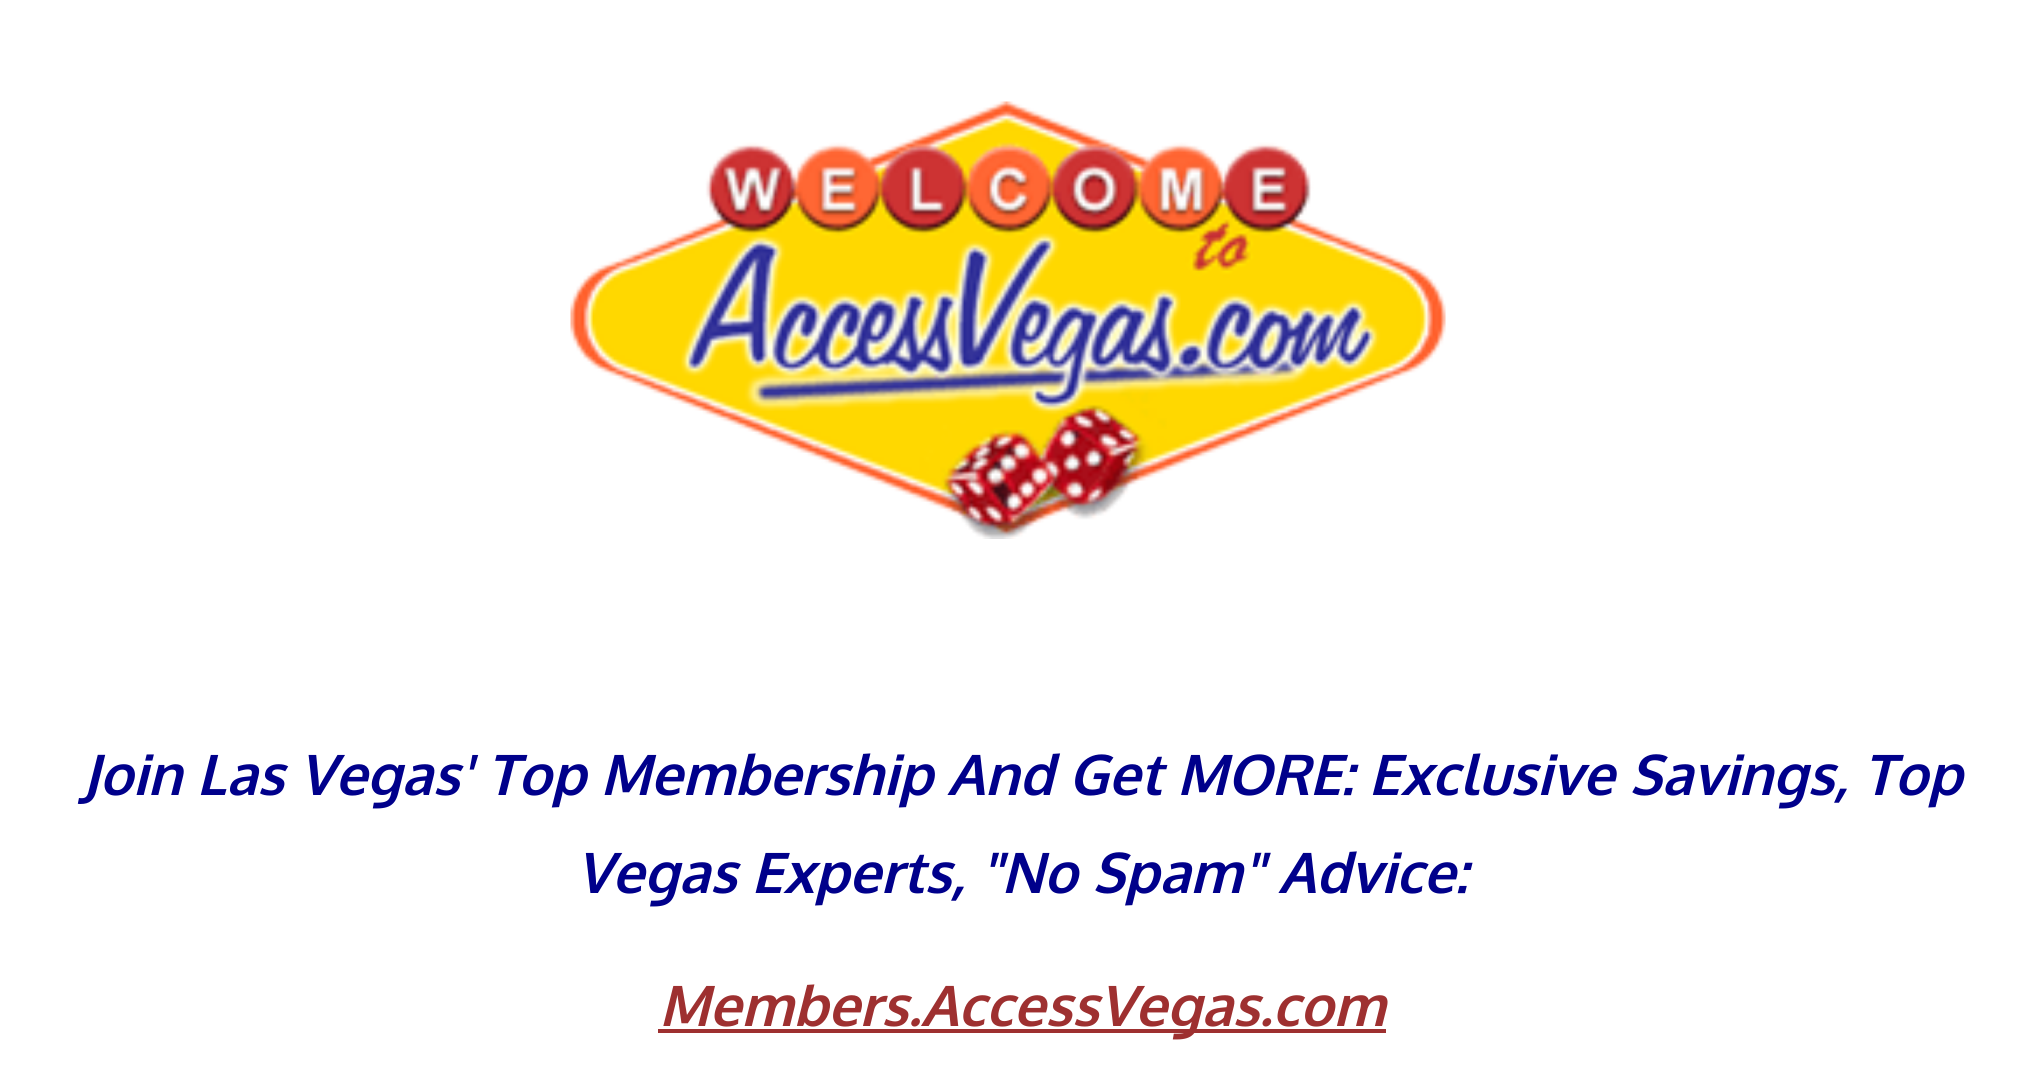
import math
import cairo

surface = cairo.ImageSurface(cairo.FORMAT_RGB24, 2042, 1084)
ctx = cairo.Context(surface)
options = cairo.FontOptions()
options.set_hint_metrics(cairo.HINT_METRICS_OFF)
options.set_hint_style(cairo.HINT_STYLE_NONE)
ctx.set_font_options(options)
ctx.set_miter_limit(4)


def picture(path, x, y, w, h):
    ctx.save()
    ctx.set_source_surface(cairo.ImageSurface.create_from_png(path), x, y)
    ctx.rectangle(x, y, w, h)
    ctx.fill()
    ctx.restore()


ctx.set_source_rgb(1, 1, 1)
ctx.paint()
picture("img1.png", 570, 101, 876, 438)
ctx.select_font_face("Oxygen", cairo.FONT_SLANT_ITALIC, cairo.FONT_WEIGHT_BOLD)
ctx.set_font_size(56)
ctx.set_source_rgb(0, 0, 0.545)
ctx.move_to(82, 795)
ctx.show_text("Join Las Vegas' Top Membership And Get MORE: Exclusive Savings, Top")
ctx.move_to(576, 893)
ctx.show_text("Vegas Experts, \"No Spam\" Advice:")
ctx.set_source_rgb(0.62, 0.188, 0.188)
ctx.rectangle(658, 1029, 728, 4)
ctx.fill()
ctx.move_to(659, 1026)
ctx.show_text("Members.AccessVegas.com")
surface.write_to_png("page.png")
